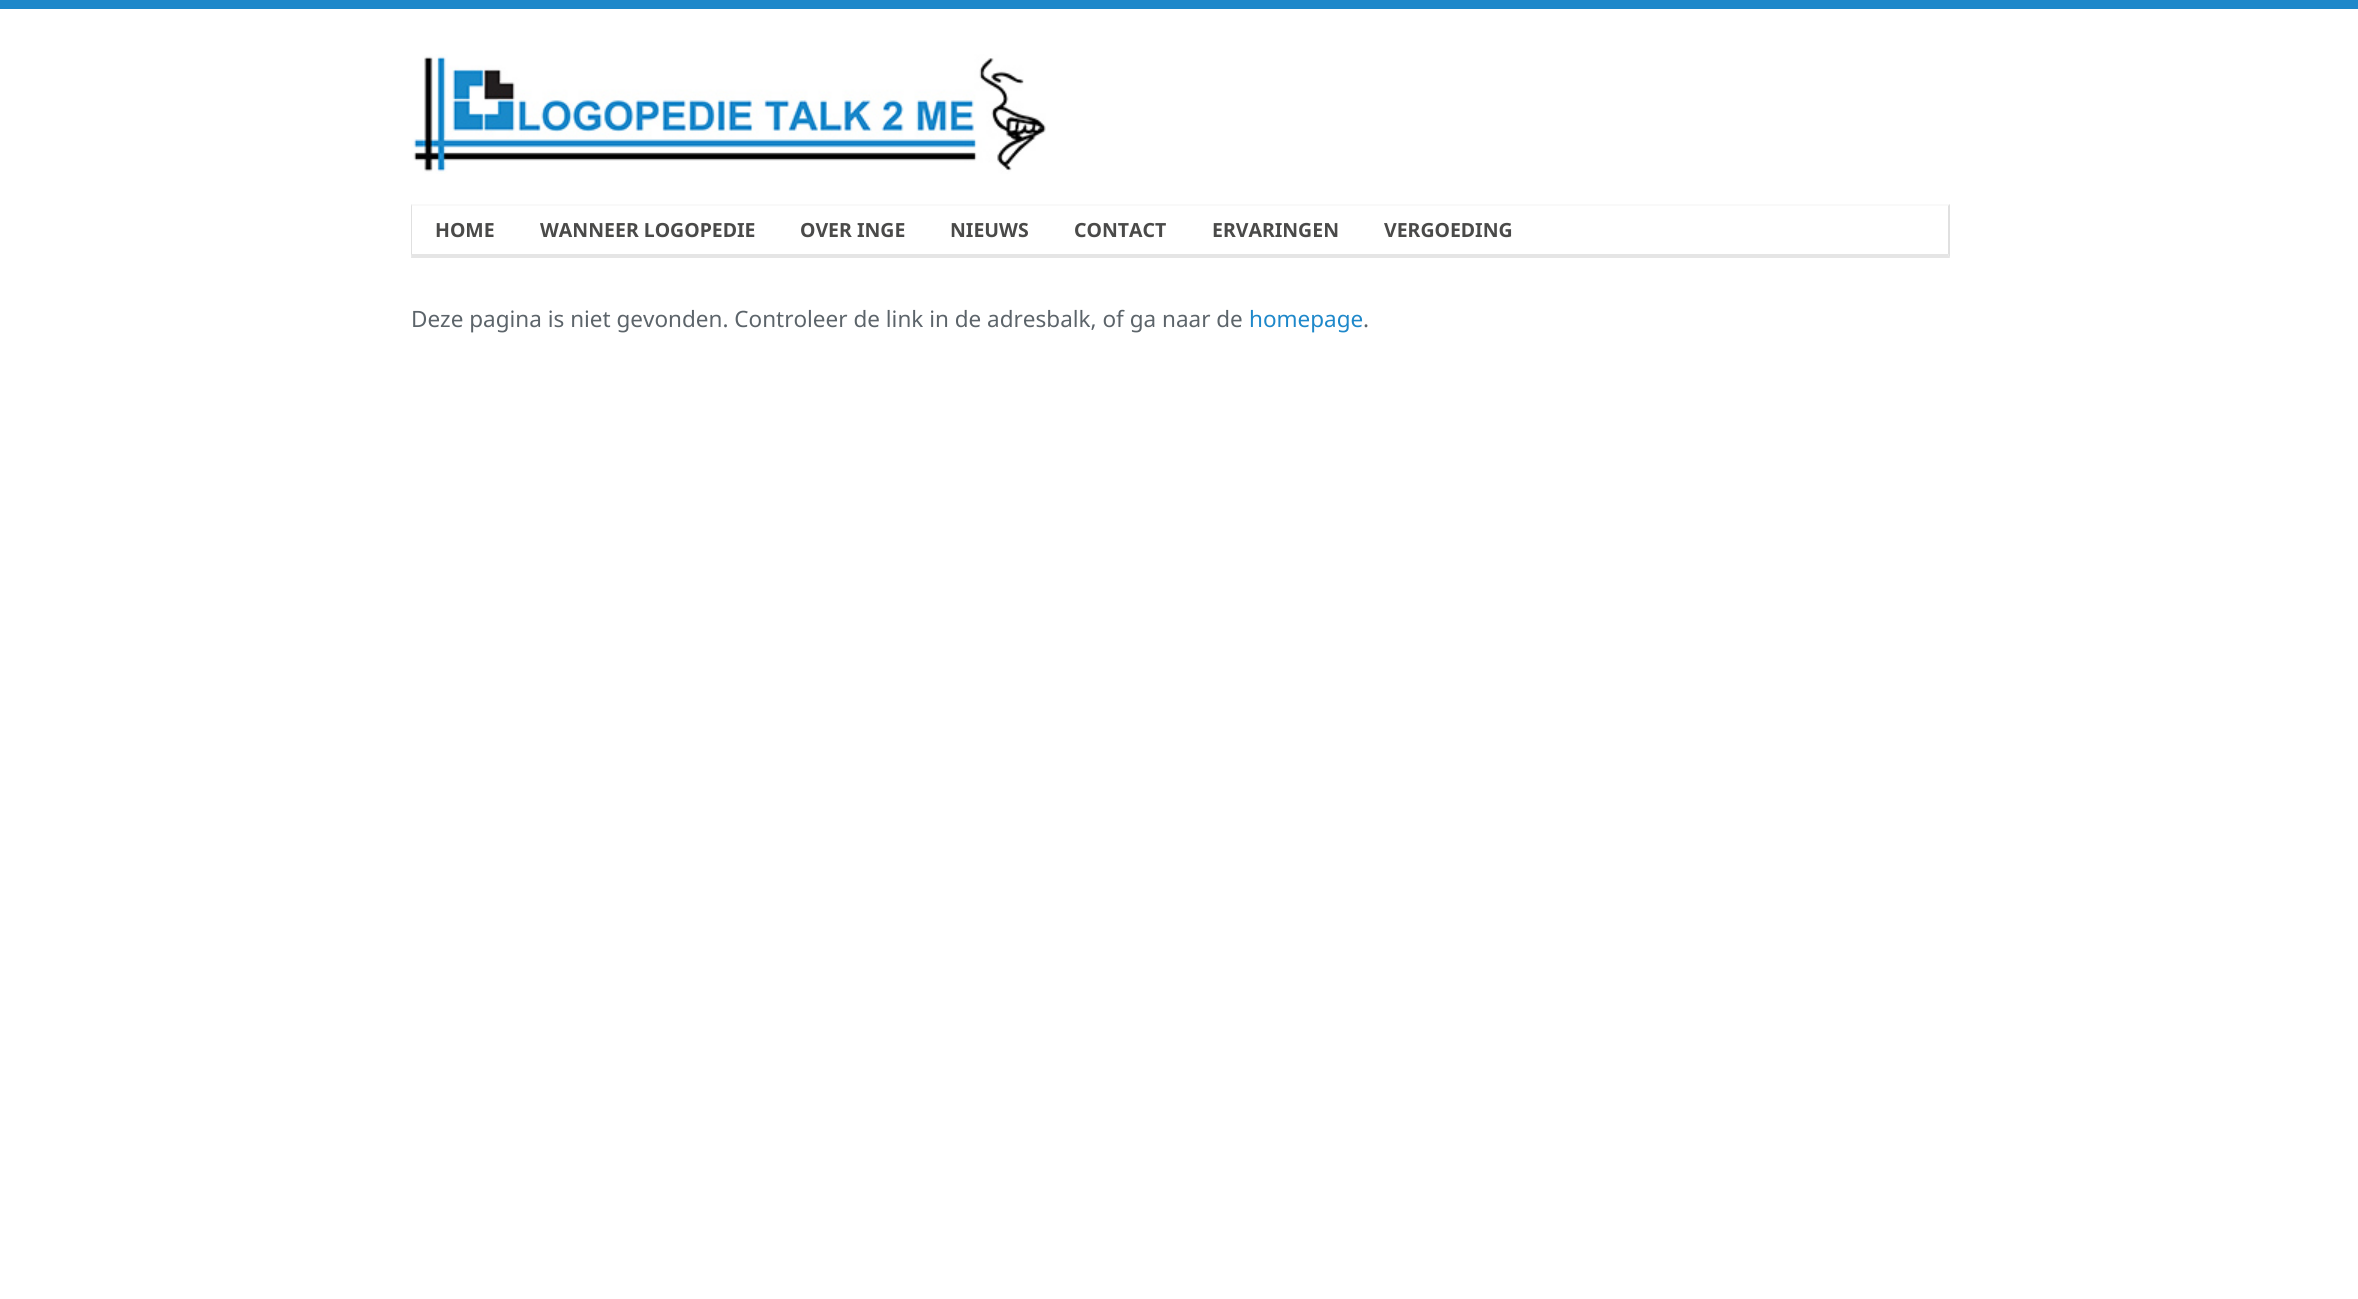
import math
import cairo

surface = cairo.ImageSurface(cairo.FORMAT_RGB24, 2358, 1299)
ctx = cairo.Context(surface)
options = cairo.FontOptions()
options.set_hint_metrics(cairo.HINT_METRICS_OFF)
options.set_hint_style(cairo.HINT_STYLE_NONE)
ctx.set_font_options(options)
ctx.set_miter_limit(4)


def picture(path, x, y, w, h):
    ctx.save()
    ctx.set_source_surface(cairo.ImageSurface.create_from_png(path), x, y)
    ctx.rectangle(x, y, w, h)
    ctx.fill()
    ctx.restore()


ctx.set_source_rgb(1, 1, 1)
ctx.paint()
ctx.set_source_rgb(0.118, 0.533, 0.792)
ctx.rectangle(0, 0, 2358, 9)
ctx.fill()
picture("img1.png", 411, 54, 635, 120)
ctx.set_source_rgb(0.973, 0.973, 0.973)
ctx.rectangle(411, 204, 1539, 2)
ctx.fill()
ctx.set_source_rgb(0.878, 0.878, 0.878)
ctx.new_path()
ctx.move_to(1950, 204)
ctx.line_to(1950, 258)
ctx.line_to(1948, 254)
ctx.line_to(1948, 206)
ctx.close_path()
ctx.fill()
ctx.set_source_rgb(0.898, 0.898, 0.898)
ctx.new_path()
ctx.move_to(1950, 258)
ctx.line_to(411, 258)
ctx.line_to(412, 254)
ctx.line_to(1948, 254)
ctx.close_path()
ctx.fill()
ctx.set_source_rgb(0.878, 0.878, 0.878)
ctx.new_path()
ctx.move_to(411, 258)
ctx.line_to(411, 204)
ctx.line_to(412, 206)
ctx.line_to(412, 254)
ctx.close_path()
ctx.fill()
ctx.select_font_face("Noto Sans", cairo.FONT_SLANT_NORMAL, cairo.FONT_WEIGHT_BOLD)
ctx.set_font_size(19.5)
ctx.set_source_rgb(0.29, 0.29, 0.286)
ctx.move_to(435, 237)
ctx.show_text("HOME")
ctx.move_to(540, 237)
ctx.show_text("WANNEER LOGOPEDIE")
ctx.move_to(800, 237)
ctx.show_text("OVER INGE")
ctx.move_to(950, 237)
ctx.show_text("NIEUWS")
ctx.move_to(1074, 237)
ctx.show_text("CONTACT")
ctx.move_to(1212, 237)
ctx.show_text("ERVARINGEN")
ctx.move_to(1384, 237)
ctx.show_text("VERGOEDING")
ctx.select_font_face("Noto Sans")
ctx.set_font_size(22.5)
ctx.set_source_rgb(0.361, 0.392, 0.416)
ctx.move_to(411, 327)
ctx.show_text("Deze pagina is niet gevonden. Controleer de link in de adresbalk, of ga naar de")
ctx.set_source_rgb(0.118, 0.533, 0.792)
ctx.move_to(1249, 327)
ctx.show_text("homepage")
ctx.set_source_rgb(0.361, 0.392, 0.416)
ctx.move_to(1363, 327)
ctx.show_text(".")
surface.write_to_png("page.png")
